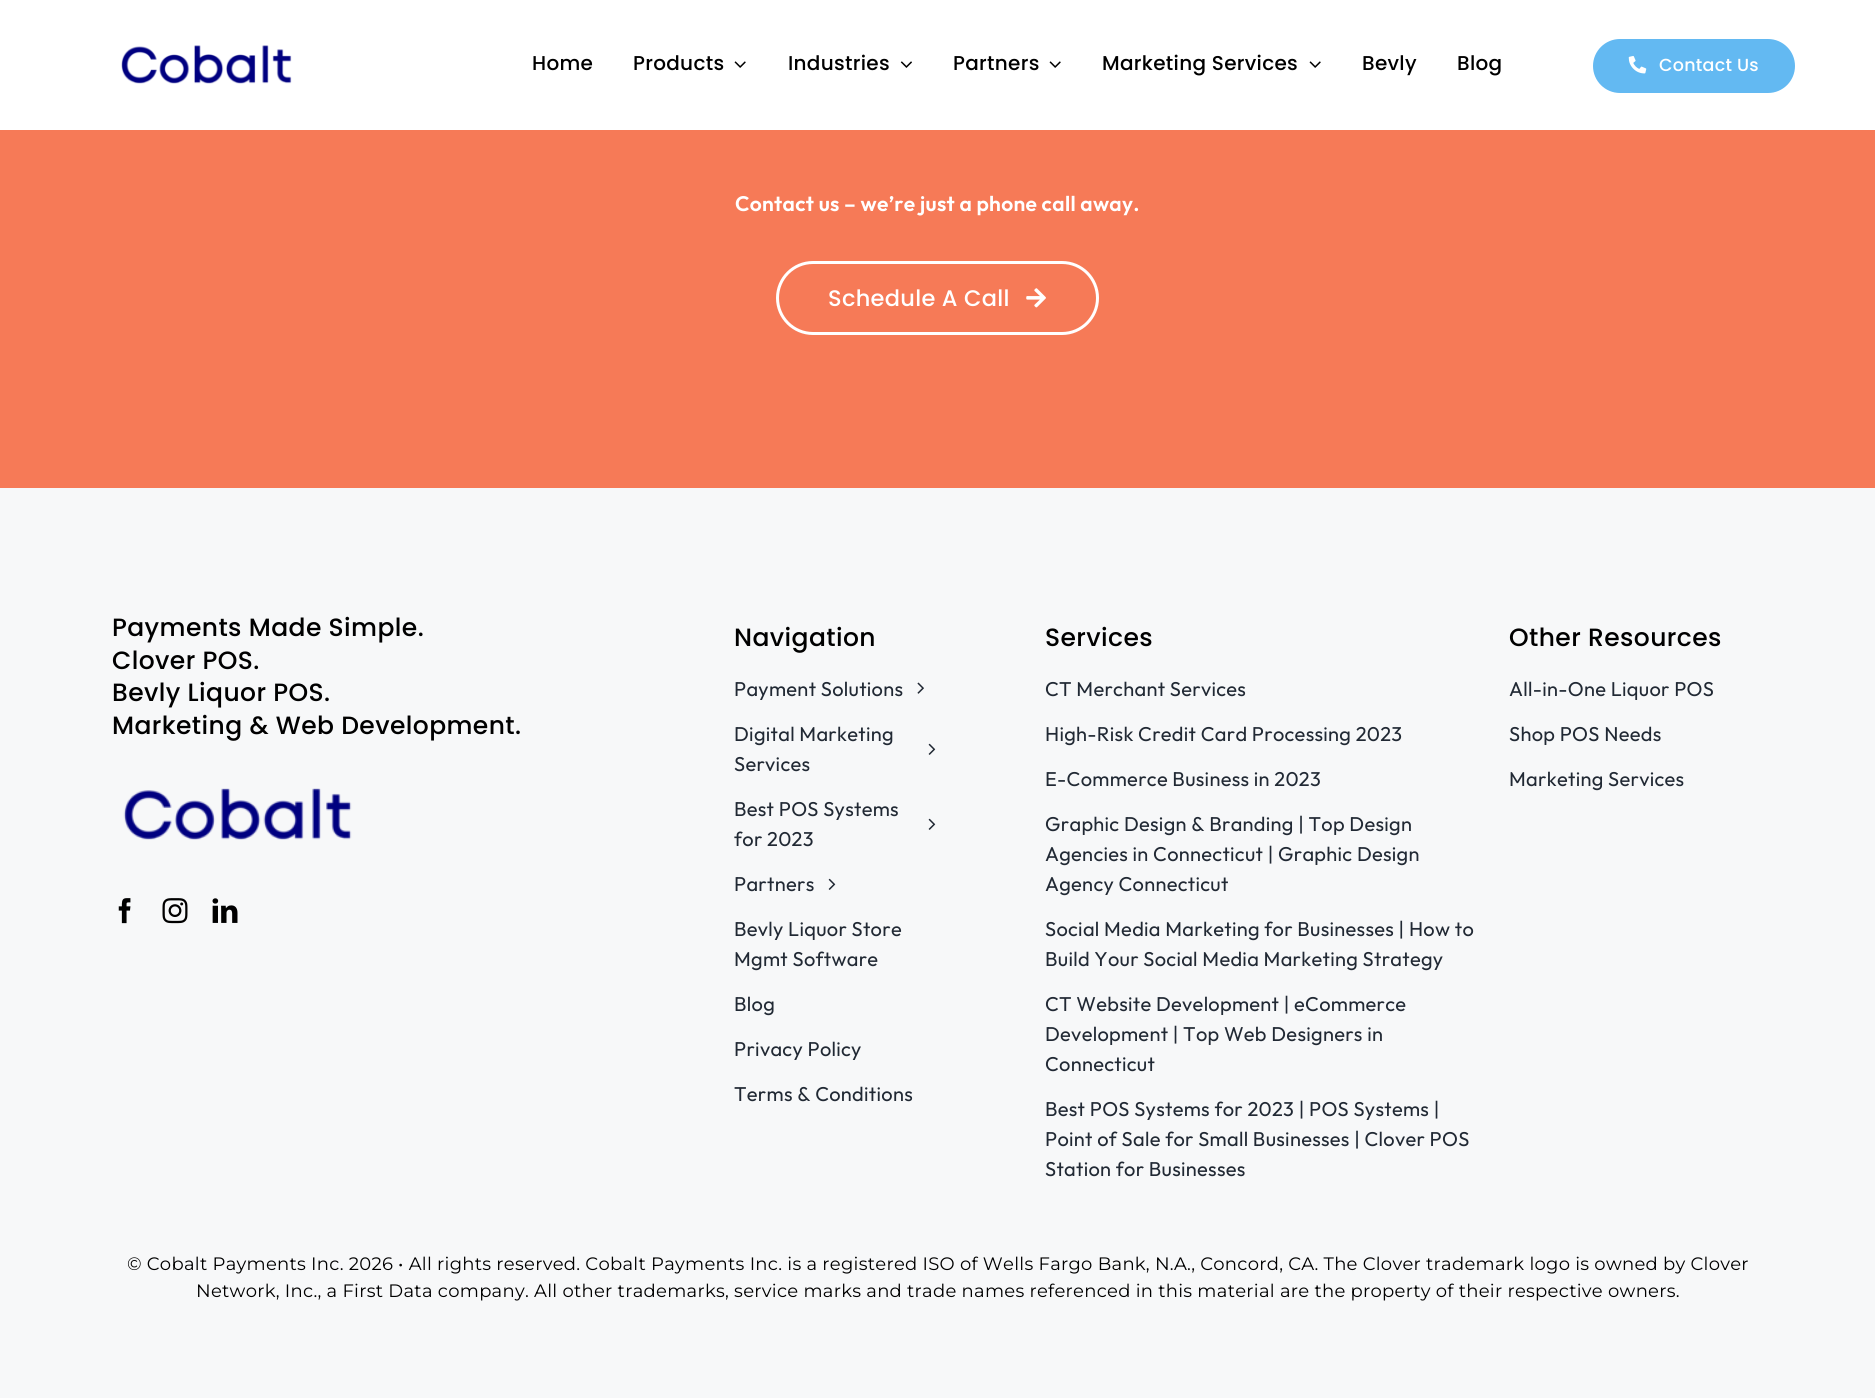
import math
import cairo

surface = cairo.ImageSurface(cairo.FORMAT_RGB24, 1875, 1398)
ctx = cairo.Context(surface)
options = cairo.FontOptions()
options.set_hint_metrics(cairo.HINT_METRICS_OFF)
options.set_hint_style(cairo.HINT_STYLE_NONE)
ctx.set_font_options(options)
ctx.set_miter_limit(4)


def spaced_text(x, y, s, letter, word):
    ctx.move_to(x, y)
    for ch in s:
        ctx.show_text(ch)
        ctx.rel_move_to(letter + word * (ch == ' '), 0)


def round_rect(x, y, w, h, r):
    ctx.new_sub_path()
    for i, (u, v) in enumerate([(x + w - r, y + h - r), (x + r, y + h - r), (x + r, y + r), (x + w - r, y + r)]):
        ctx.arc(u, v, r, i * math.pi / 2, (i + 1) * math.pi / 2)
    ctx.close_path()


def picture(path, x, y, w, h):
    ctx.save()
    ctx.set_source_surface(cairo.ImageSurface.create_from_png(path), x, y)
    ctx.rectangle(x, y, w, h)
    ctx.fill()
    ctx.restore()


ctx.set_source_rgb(0.961, 0.478, 0.341)
ctx.paint()
ctx.set_source_rgb(1, 1, 1)
ctx.rectangle(0, 0, 1875, 130)
ctx.fill()
picture("img1.png", 121, 45, 171, 39)
ctx.select_font_face("Poppins Medium")
ctx.set_font_size(20)
ctx.set_source_rgb(0, 0, 0)
spaced_text(532, 70, "Home", 0.3, 0)
spaced_text(633, 70, "Products", 0.3, 0)
picture("img2.png", 734, 61, 12, 7)
spaced_text(788, 70, "Industries", 0.3, 0)
picture("img3.png", 900, 61, 12, 7)
spaced_text(953, 70, "Partners", 0.3, 0)
picture("img2.png", 1049, 61, 12, 7)
spaced_text(1102, 70, "Marketing Services", 0.3, 0)
picture("img2.png", 1309, 61, 12, 7)
spaced_text(1362, 70, "Bevly", 0.3, 0)
spaced_text(1457, 70, "Blog", 0.3, 0)
ctx.set_source_rgb(0.388, 0.725, 0.949)
round_rect(1593, 39, 202, 54, 27)
ctx.fill()
picture("img4.png", 1628, 56, 19, 18)
ctx.set_font_size(17.5)
ctx.set_source_rgb(1, 1, 1)
spaced_text(1659, 71, "Contact Us", 0.25, 0)
ctx.select_font_face("Outfit SemiBold")
ctx.set_font_size(21)
spaced_text(735, 211, "Contact us – we’re just a phone call away.", 0.3, 0)
round_rect(777.5, 262.5, 320, 71, 35.5)
ctx.set_line_width(3)
ctx.stroke()
ctx.select_font_face("Poppins Medium")
ctx.set_font_size(22.5)
spaced_text(828, 306, "Schedule A Call", 0.3, 0)
picture("img5.png", 1026, 288, 20, 20)
ctx.set_source_rgb(0.965, 0.969, 0.976)
ctx.rectangle(0, 488, 1875, 910)
ctx.fill()
ctx.set_font_size(25)
ctx.set_source_rgb(0, 0, 0)
spaced_text(112, 636, "Payments Made Simple.", 0.4, 0)
spaced_text(112, 669, "Clover POS.", 0.4, 0)
spaced_text(112, 701, "Bevly Liquor POS.", 0.4, 0)
spaced_text(112, 734, "Marketing & Web Development.", 0.4, 0)
picture("img6.png", 123, 788, 229, 52)
picture("img7.png", 118, 898, 13, 26)
picture("img8.png", 162, 898, 26, 26)
picture("img9.png", 212, 898, 26, 25)
spaced_text(734, 646, "Navigation", 0.4, 0)
ctx.select_font_face("Outfit")
ctx.set_font_size(20)
ctx.set_source_rgb(0.129, 0.161, 0.204)
spaced_text(734, 696, "Payment Solutions", 0.3, 0)
picture("img10.png", 917, 682, 7, 12)
spaced_text(734, 741, "Digital Marketing", 0.3, 0)
spaced_text(734, 771, "Services", 0.3, 0)
picture("img11.png", 928, 743, 8, 12)
spaced_text(734, 816, "Best POS Systems", 0.3, 0)
spaced_text(734, 846, "for 2023", 0.3, 0)
picture("img11.png", 928, 818, 8, 12)
spaced_text(734, 891, "Partners", 0.3, 0)
picture("img12.png", 828, 878, 8, 12)
spaced_text(734, 936, "Bevly Liquor Store", 0.3, 0)
spaced_text(734, 966, "Mgmt Software", 0.3, 0)
spaced_text(734, 1011, "Blog", 0.3, 0)
spaced_text(734, 1056, "Privacy Policy", 0.3, 0)
spaced_text(734, 1101, "Terms & Conditions", 0.3, 0)
ctx.select_font_face("Poppins Medium")
ctx.set_font_size(25)
ctx.set_source_rgb(0, 0, 0)
spaced_text(1045, 646, "Services", 0.4, 0)
ctx.select_font_face("Outfit")
ctx.set_font_size(20)
ctx.set_source_rgb(0.129, 0.161, 0.204)
spaced_text(1045, 696, "CT Merchant Services", 0.3, 0)
spaced_text(1045, 741, "High-Risk Credit Card Processing 2023", 0.3, 0)
spaced_text(1045, 786, "E-Commerce Business in 2023", 0.3, 0)
spaced_text(1045, 831, "Graphic Design & Branding | Top Design", 0.3, 0)
spaced_text(1045, 861, "Agencies in Connecticut | Graphic Design", 0.3, 0)
spaced_text(1045, 891, "Agency Connecticut", 0.3, 0)
spaced_text(1045, 936, "Social Media Marketing for Businesses | How to", 0.3, 0)
spaced_text(1045, 966, "Build Your Social Media Marketing Strategy", 0.3, 0)
spaced_text(1045, 1011, "CT Website Development | eCommerce", 0.3, 0)
spaced_text(1045, 1041, "Development | Top Web Designers in", 0.3, 0)
spaced_text(1045, 1071, "Connecticut", 0.3, 0)
spaced_text(1045, 1116, "Best POS Systems for 2023 | POS Systems |", 0.3, 0)
spaced_text(1045, 1146, "Point of Sale for Small Businesses | Clover POS", 0.3, 0)
spaced_text(1045, 1176, "Station for Businesses", 0.3, 0)
ctx.select_font_face("Poppins Medium")
ctx.set_font_size(25)
ctx.set_source_rgb(0, 0, 0)
spaced_text(1509, 646, "Other Resources", 0.4, 0)
ctx.select_font_face("Outfit")
ctx.set_font_size(20)
ctx.set_source_rgb(0.129, 0.161, 0.204)
spaced_text(1509, 696, "All-in-One Liquor POS", 0.3, 0)
spaced_text(1509, 741, "Shop POS Needs", 0.3, 0)
spaced_text(1509, 786, "Marketing Services", 0.3, 0)
ctx.select_font_face("Montserrat Thin")
ctx.set_font_size(18)
ctx.set_source_rgb(0, 0, 0)
spaced_text(127, 1270, "© Cobalt Payments Inc. 2026 • All rights reserved. Cobalt Payments Inc. is a registered ISO of Wells Fargo Bank, N.A., Concord, CA. The Clover trademark logo is owned by Clover", 0.27, 0)
spaced_text(196, 1297, "Network, Inc., a First Data company. All other trademarks, service marks and trade names referenced in this material are the property of their respective owners.", 0.27, 0)
surface.write_to_png("page.png")
